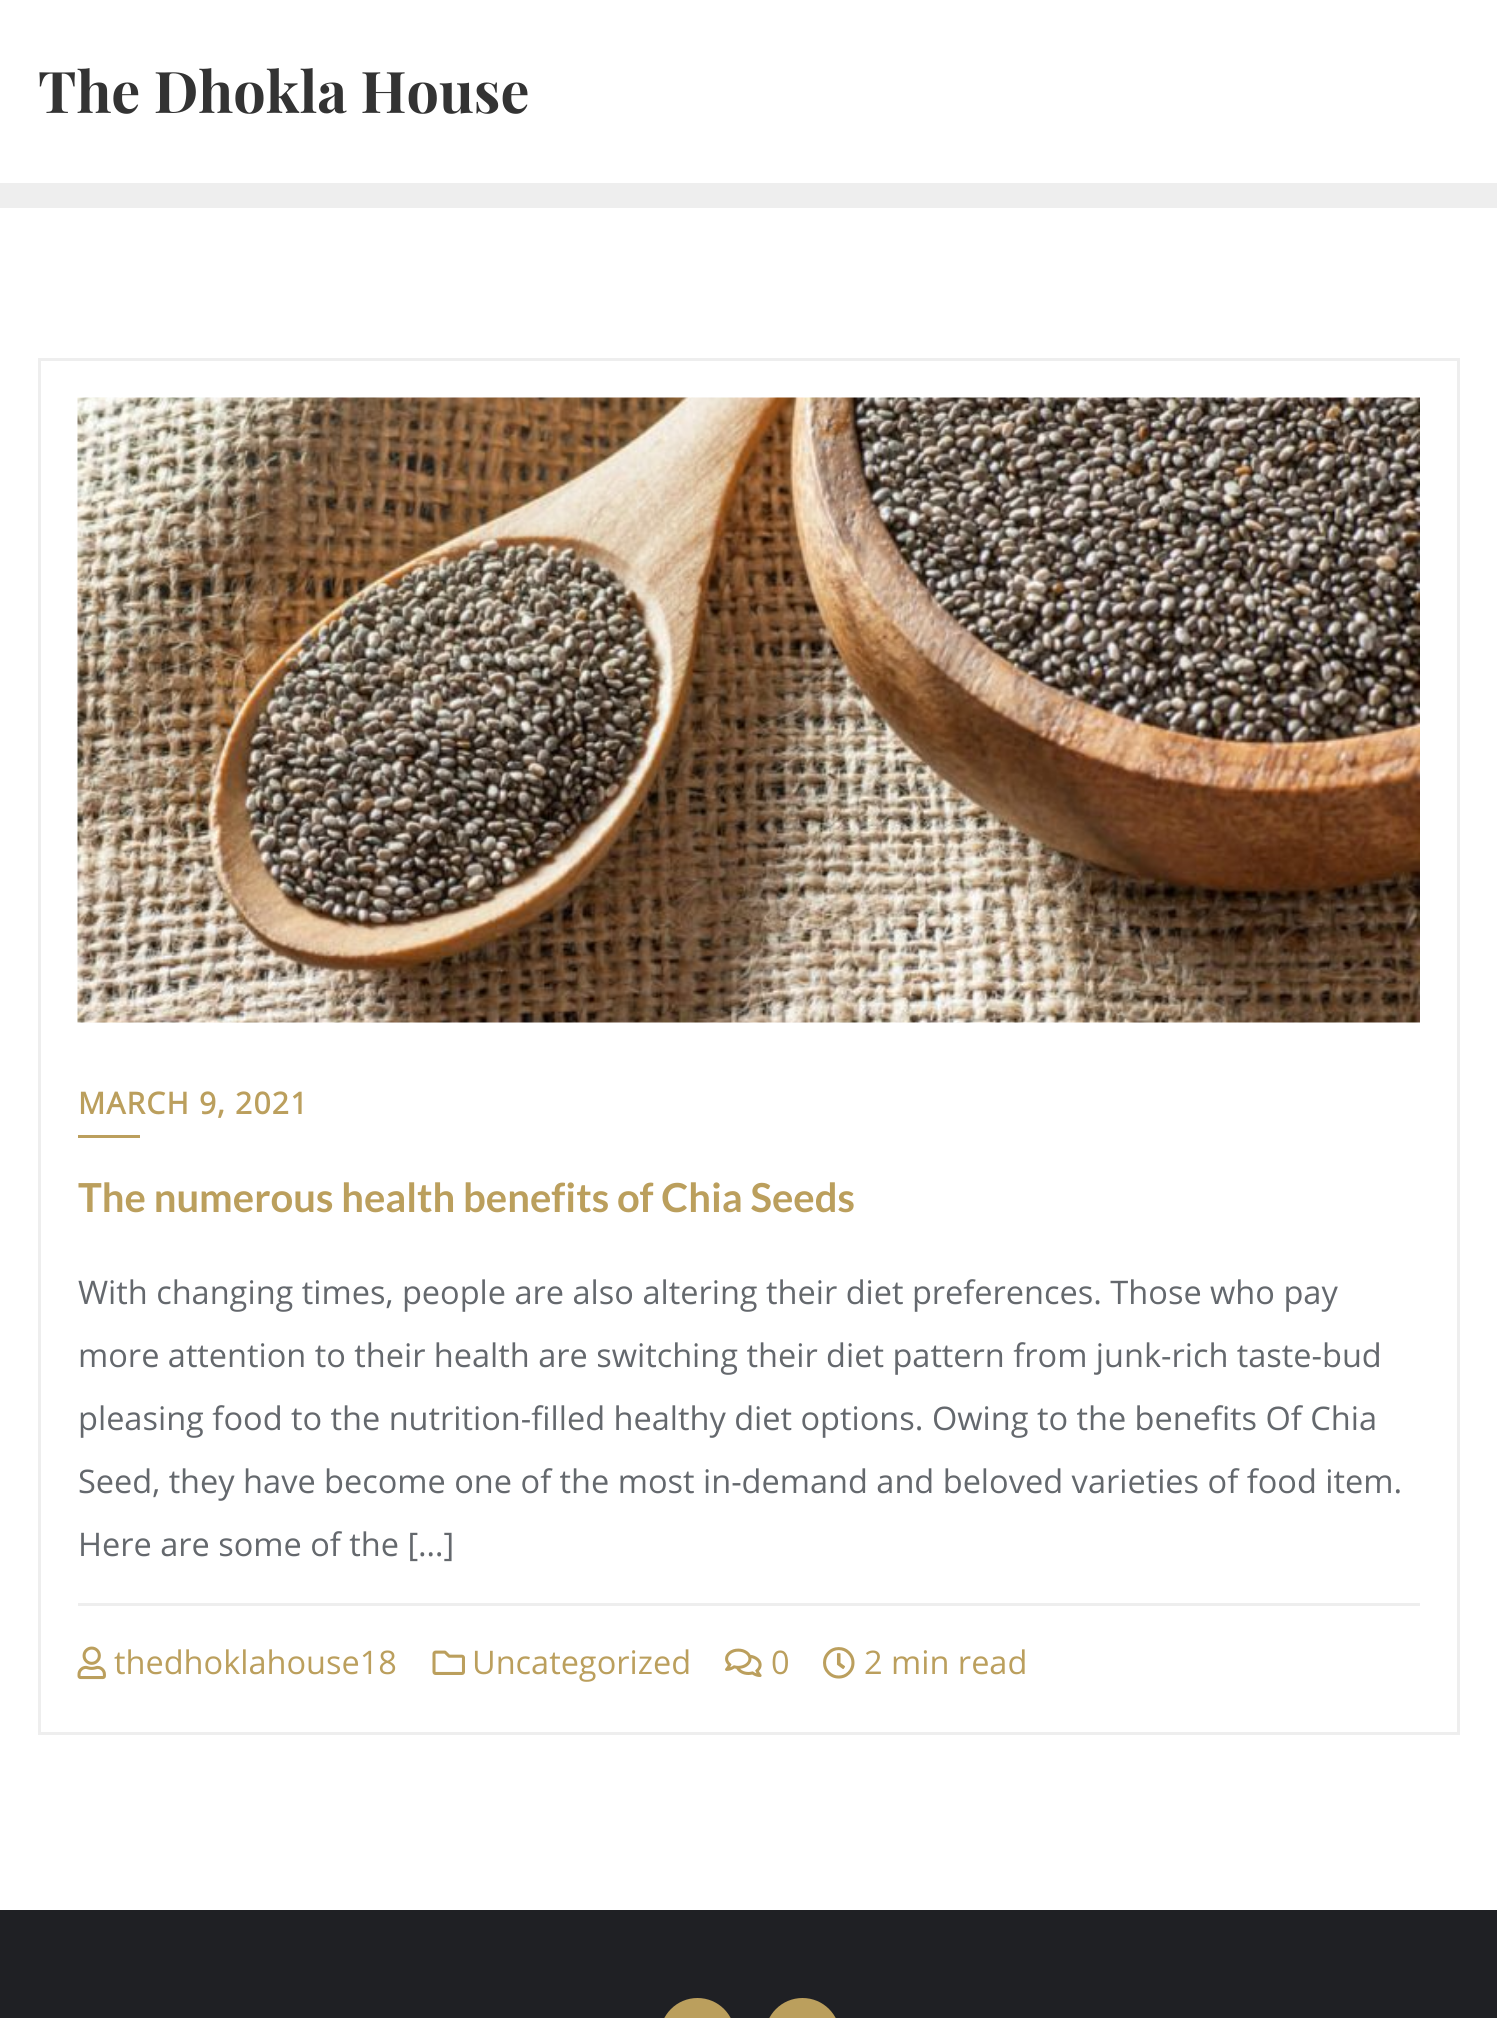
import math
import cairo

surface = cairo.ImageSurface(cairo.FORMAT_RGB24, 1497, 2018)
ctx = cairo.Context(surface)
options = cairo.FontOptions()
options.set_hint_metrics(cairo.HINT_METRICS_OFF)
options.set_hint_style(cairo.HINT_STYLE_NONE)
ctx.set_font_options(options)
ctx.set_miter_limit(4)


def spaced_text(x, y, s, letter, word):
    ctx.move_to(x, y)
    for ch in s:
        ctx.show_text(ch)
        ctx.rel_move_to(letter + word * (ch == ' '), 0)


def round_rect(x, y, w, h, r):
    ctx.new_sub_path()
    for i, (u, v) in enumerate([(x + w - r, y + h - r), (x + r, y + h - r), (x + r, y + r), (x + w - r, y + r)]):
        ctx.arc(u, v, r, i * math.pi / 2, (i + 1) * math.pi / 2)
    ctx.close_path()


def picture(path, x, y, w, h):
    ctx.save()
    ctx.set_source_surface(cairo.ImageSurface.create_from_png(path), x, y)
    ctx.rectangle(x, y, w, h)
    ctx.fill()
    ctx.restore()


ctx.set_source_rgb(1, 1, 1)
ctx.paint()
ctx.set_source_rgb(0.933, 0.933, 0.933)
ctx.rectangle(0, 183, 1497, 25)
ctx.fill()
ctx.select_font_face("Playfair Display", cairo.FONT_SLANT_NORMAL, cairo.FONT_WEIGHT_BOLD)
ctx.set_font_size(57.5)
ctx.set_source_rgb(0.2, 0.2, 0.2)
ctx.move_to(38, 113)
ctx.show_text("The Dhokla House")
ctx.rectangle(39.5, 359.5, 1419, 1374)
ctx.set_source_rgb(0.933, 0.933, 0.933)
ctx.set_line_width(3)
ctx.stroke()
picture("img1.png", 77, 397, 1343, 626)
ctx.select_font_face("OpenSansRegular", cairo.FONT_SLANT_NORMAL, cairo.FONT_WEIGHT_BOLD)
ctx.set_font_size(30)
ctx.set_source_rgb(0.733, 0.624, 0.365)
spaced_text(78, 1114, "MARCH 9, 2021", 1.25, 0)
ctx.rectangle(78, 1135, 62, 3)
ctx.fill()
ctx.select_font_face("Lato", cairo.FONT_SLANT_NORMAL, cairo.FONT_WEIGHT_BOLD)
ctx.set_font_size(40)
ctx.move_to(78, 1212)
ctx.show_text("The numerous health benefits of Chia Seeds")
ctx.select_font_face("OpenSansRegular")
ctx.set_font_size(32.5)
ctx.set_source_rgb(0.392, 0.408, 0.427)
ctx.move_to(78, 1304)
ctx.show_text("With changing times, people are also altering their diet preferences. Those who pay")
ctx.move_to(78, 1367)
ctx.show_text("more attention to their health are switching their diet pattern from junk-rich taste-bud")
ctx.move_to(78, 1430)
ctx.show_text("pleasing food to the nutrition-filled healthy diet options. Owing to the benefits Of Chia")
ctx.move_to(78, 1493)
ctx.show_text("Seed, they have become one of the most in-demand and beloved varieties of food item.")
ctx.move_to(78, 1556)
ctx.show_text("Here are some of the […]")
ctx.set_source_rgb(0.933, 0.933, 0.933)
ctx.rectangle(78, 1603, 1342, 3)
ctx.fill()
picture("img2.png", 77, 1646, 29, 34)
ctx.set_source_rgb(0.733, 0.624, 0.365)
ctx.move_to(114, 1674)
ctx.show_text("thedhoklahouse18")
picture("img3.png", 432, 1650, 33, 25)
ctx.move_to(472, 1674)
ctx.show_text("Uncategorized")
picture("img4.png", 725, 1648, 37, 29)
ctx.move_to(771, 1674)
ctx.show_text("0")
picture("img5.png", 823, 1647, 32, 32)
ctx.move_to(864, 1674)
ctx.show_text("2 min read")
ctx.set_source_rgb(0.122, 0.125, 0.141)
ctx.rectangle(0, 1910, 1497, 108)
ctx.fill()
ctx.set_source_rgb(0.733, 0.624, 0.365)
round_rect(660, 1998, 75, 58, 37.5)
ctx.fill()
round_rect(765, 1998, 75, 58, 37.5)
ctx.fill()
surface.write_to_png("page.png")
